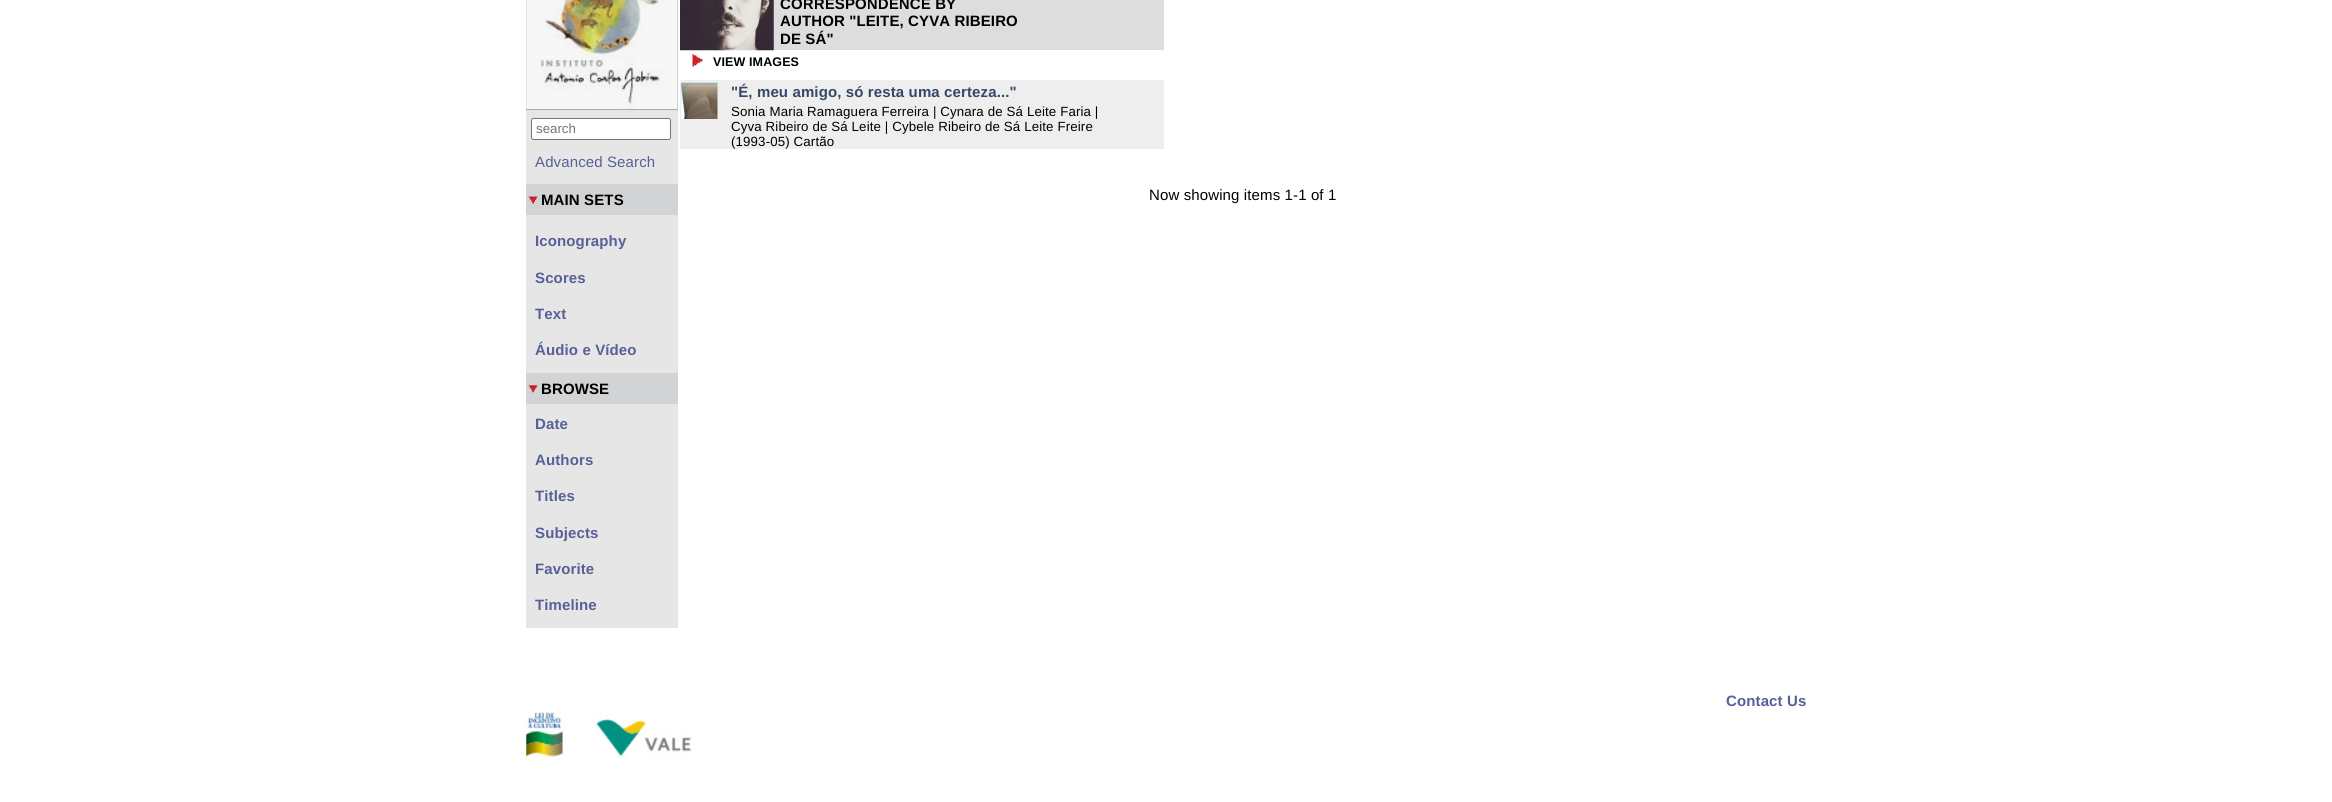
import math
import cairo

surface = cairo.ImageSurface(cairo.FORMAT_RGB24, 2332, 802)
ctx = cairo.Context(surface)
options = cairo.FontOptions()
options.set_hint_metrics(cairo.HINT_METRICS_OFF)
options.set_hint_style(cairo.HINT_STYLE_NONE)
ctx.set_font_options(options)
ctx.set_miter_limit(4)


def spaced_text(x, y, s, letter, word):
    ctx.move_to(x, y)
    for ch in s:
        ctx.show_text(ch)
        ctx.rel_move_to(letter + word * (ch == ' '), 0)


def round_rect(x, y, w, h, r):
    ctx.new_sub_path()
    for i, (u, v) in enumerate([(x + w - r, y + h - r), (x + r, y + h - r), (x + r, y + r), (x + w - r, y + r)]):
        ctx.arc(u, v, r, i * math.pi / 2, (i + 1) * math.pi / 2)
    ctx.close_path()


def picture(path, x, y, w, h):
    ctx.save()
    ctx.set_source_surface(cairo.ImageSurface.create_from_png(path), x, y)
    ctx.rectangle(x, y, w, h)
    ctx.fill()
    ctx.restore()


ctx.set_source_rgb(1, 1, 1)
ctx.paint()
ctx.set_source_rgb(0.867, 0.867, 0.867)
ctx.rectangle(773, 0, 391, 50)
ctx.fill()
picture("img1.png", 680, 0, 94, 51)
ctx.select_font_face("Liberation Sans", cairo.FONT_SLANT_NORMAL, cairo.FONT_WEIGHT_BOLD)
ctx.set_font_size(15)
ctx.set_source_rgb(0, 0, 0)
spaced_text(780, 9, "CORRESPONDENCE BY", 0.12, 0)
spaced_text(780, 26, "AUTHOR \"LEITE, CYVA RIBEIRO", 0.12, 0)
spaced_text(780, 44, "DE SÁ\"", 0.12, 0)
picture("img2.png", 692, 54, 11, 13)
ctx.set_font_size(12.5)
spaced_text(713, 66, "VIEW IMAGES", 0.12, 0)
ctx.set_source_rgb(0.933, 0.933, 0.933)
ctx.rectangle(680, 80, 484, 69)
ctx.fill()
picture("img3.png", 681, 82, 37, 37)
ctx.set_font_size(15)
ctx.set_source_rgb(0.204, 0.286, 0.404)
spaced_text(731, 97, "\"É, meu amigo, só resta uma certeza...\"", 0.12, 0)
ctx.select_font_face("Liberation Sans")
ctx.set_font_size(13.3)
ctx.set_source_rgb(0, 0, 0)
spaced_text(731, 116, "Sonia Maria Ramaguera Ferreira | Cynara de Sá Leite Faria |", 0.12, 0)
spaced_text(731, 131, "Cyva Ribeiro de Sá Leite | Cybele Ribeiro de Sá Leite Freire", 0.12, 0)
spaced_text(731, 146, "(1993-05) Cartão", 0.12, 0)
ctx.set_font_size(15)
spaced_text(1149, 200, "Now showing items 1-1 of 1", 0.12, 0)
ctx.set_source_rgb(0.902, 0.902, 0.902)
ctx.rectangle(526, 110, 152, 518)
ctx.fill()
ctx.set_source_rgb(0.667, 0.667, 0.667)
ctx.rectangle(526, 0, 152, 110)
ctx.fill()
picture("img4.png", 526, 0, 152, 109)
ctx.set_source_rgb(1, 1, 1)
round_rect(531.5, 118.5, 139, 21, 2)
ctx.fill_preserve()
ctx.set_source_rgb(0.463, 0.463, 0.463)
ctx.set_line_width(1)
ctx.stroke()
ctx.set_font_size(13.3)
ctx.set_source_rgb(0.459, 0.459, 0.459)
ctx.move_to(536, 133)
ctx.show_text("search")
ctx.set_font_size(15)
ctx.set_source_rgb(0.349, 0.373, 0.592)
spaced_text(535, 167, "Advanced Search", 0.12, 0)
ctx.set_source_rgb(0.82, 0.827, 0.831)
ctx.rectangle(526, 184, 152, 31)
ctx.fill()
picture("img5.png", 528, 196, 10, 8)
ctx.select_font_face("Liberation Sans", cairo.FONT_SLANT_NORMAL, cairo.FONT_WEIGHT_BOLD)
ctx.set_source_rgb(0, 0, 0)
spaced_text(541, 205, "MAIN SETS", 0.12, 0)
ctx.set_source_rgb(0.349, 0.373, 0.592)
spaced_text(535, 246, "Iconography", 0.12, 0)
spaced_text(535, 283, "Scores", 0.12, 0)
spaced_text(535, 319, "Text", 0.12, 0)
spaced_text(535, 355, "Áudio e Vídeo", 0.12, 0)
ctx.set_source_rgb(0.82, 0.827, 0.831)
ctx.rectangle(526, 373, 152, 31)
ctx.fill()
picture("img6.png", 528, 385, 10, 8)
ctx.set_source_rgb(0, 0, 0)
spaced_text(541, 394, "BROWSE", 0.12, 0)
ctx.set_source_rgb(0.349, 0.373, 0.592)
spaced_text(535, 429, "Date", 0.12, 0)
spaced_text(535, 465, "Authors", 0.12, 0)
spaced_text(535, 501, "Titles", 0.12, 0)
spaced_text(535, 538, "Subjects", 0.12, 0)
spaced_text(535, 574, "Favorite", 0.12, 0)
spaced_text(535, 610, "Timeline", 0.12, 0)
spaced_text(1726, 706, "Contact Us", 0.12, 0)
picture("img7.png", 526, 712, 166, 48)
surface.write_to_png("page.png")
